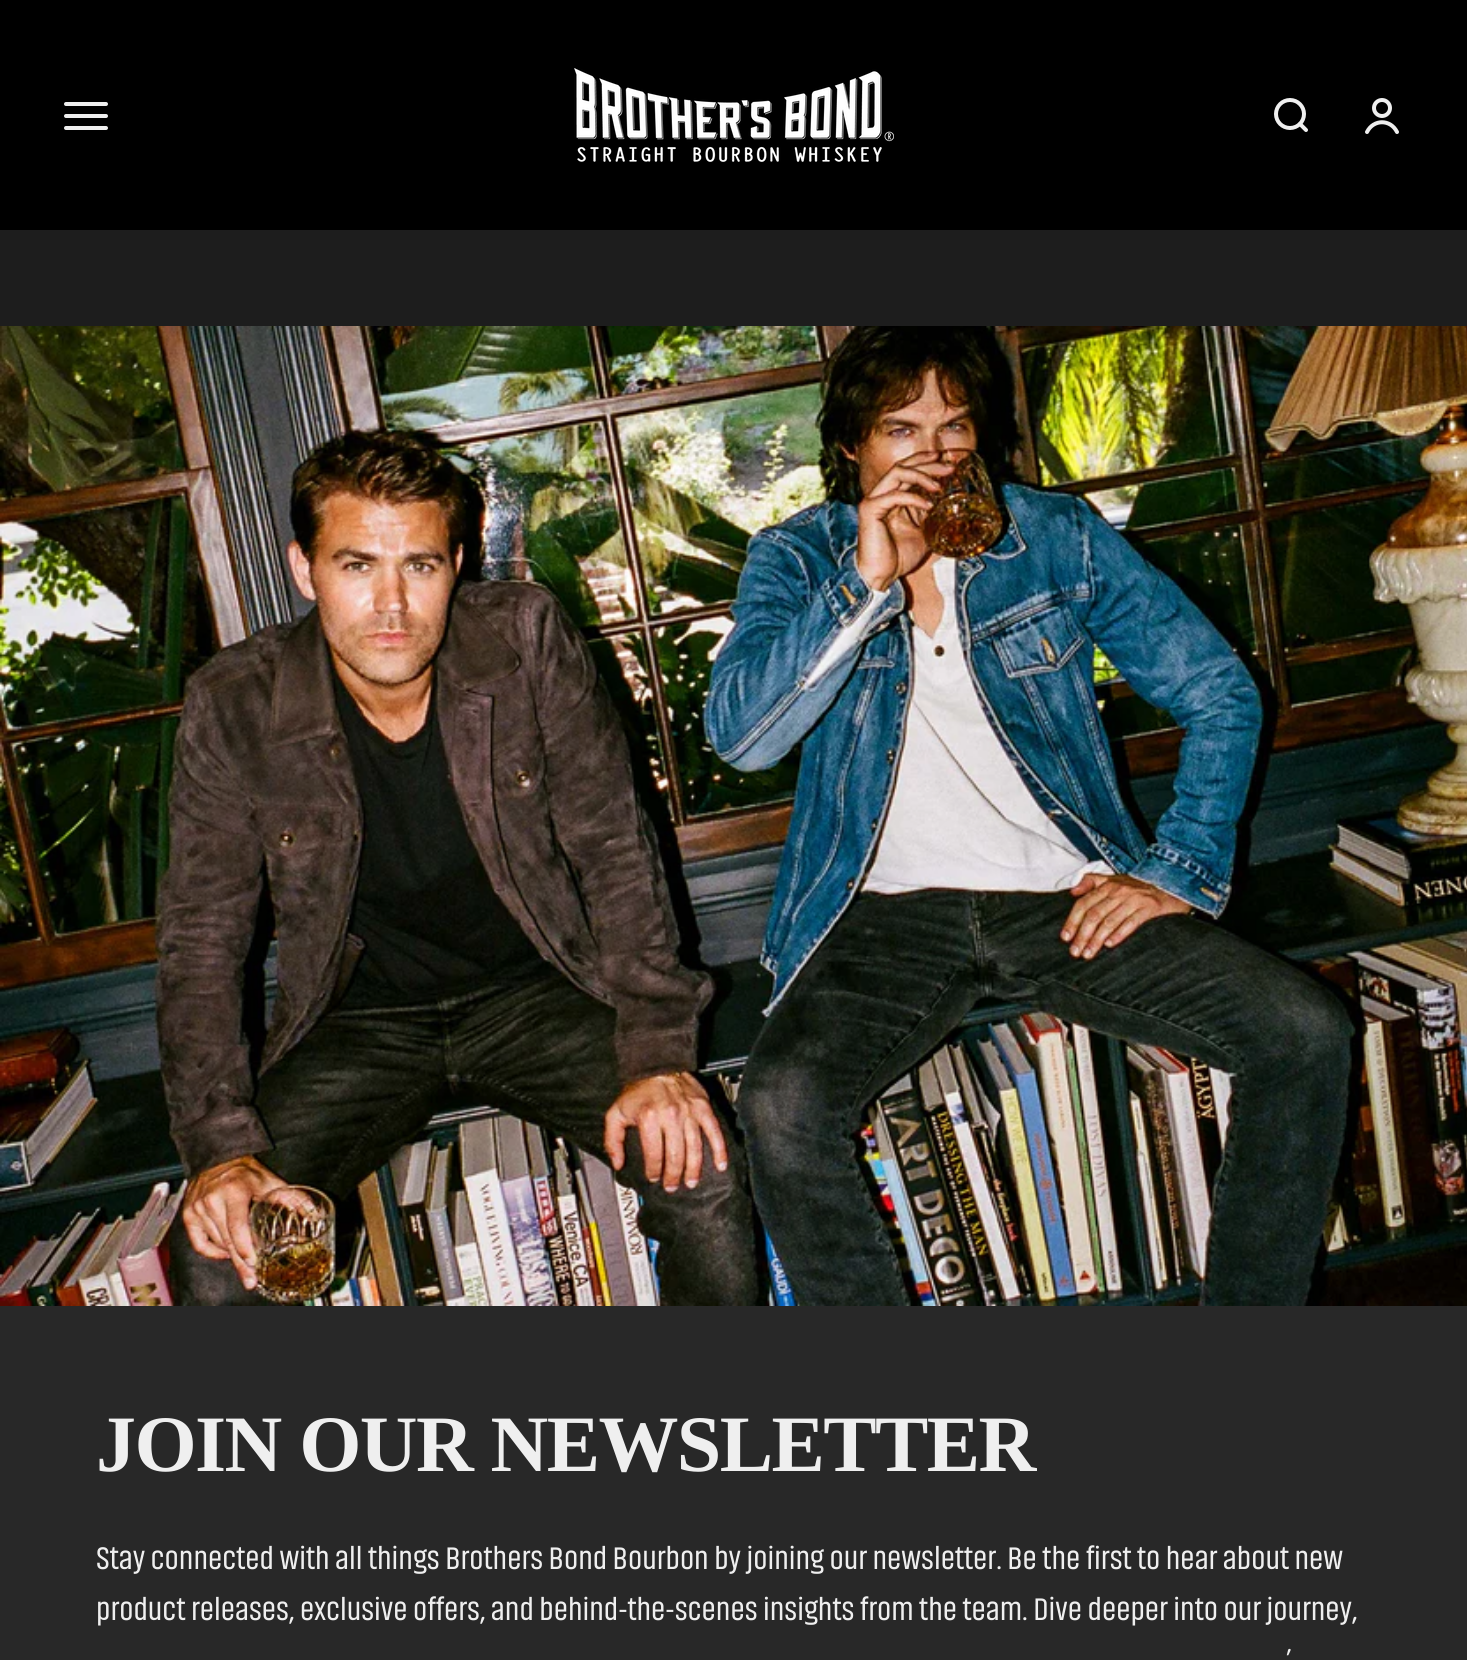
import math
import cairo

surface = cairo.ImageSurface(cairo.FORMAT_RGB24, 1467, 1660)
ctx = cairo.Context(surface)
options = cairo.FontOptions()
options.set_hint_metrics(cairo.HINT_METRICS_OFF)
options.set_hint_style(cairo.HINT_STYLE_NONE)
ctx.set_font_options(options)
ctx.set_miter_limit(4)


def spaced_text(x, y, s, letter, word):
    ctx.move_to(x, y)
    for ch in s:
        ctx.show_text(ch)
        ctx.rel_move_to(letter + word * (ch == ' '), 0)


def picture(path, x, y, w, h):
    ctx.save()
    ctx.set_source_surface(cairo.ImageSurface.create_from_png(path), x, y)
    ctx.rectangle(x, y, w, h)
    ctx.fill()
    ctx.restore()


ctx.set_source_rgb(0.114, 0.114, 0.114)
ctx.paint()
ctx.set_source_rgb(0, 0, 0)
ctx.rectangle(0, 0, 1467, 230)
ctx.fill()
ctx.new_path()
ctx.move_to(66, 104)
ctx.line_to(106, 104)
ctx.move_to(66, 116)
ctx.line_to(106, 116)
ctx.move_to(66, 128)
ctx.line_to(106, 128)
ctx.set_source_rgb(0.937, 0.937, 0.937)
ctx.set_line_width(4)
ctx.set_line_cap(cairo.LINE_CAP_ROUND)
ctx.stroke()
picture("img1.png", 574, 68, 320, 94)
ctx.arc(1290, 114, 14, 0, 2 * math.pi)
ctx.set_line_cap(cairo.LINE_CAP_BUTT)
ctx.stroke()
ctx.new_path()
ctx.move_to(1300, 124)
ctx.line_to(1306, 130)
ctx.set_line_cap(cairo.LINE_CAP_ROUND)
ctx.set_line_join(cairo.LINE_JOIN_ROUND)
ctx.stroke()
ctx.arc(1382, 108, 8, 0, 2 * math.pi)
ctx.set_line_cap(cairo.LINE_CAP_BUTT)
ctx.set_line_join(cairo.LINE_JOIN_MITER)
ctx.stroke()
ctx.new_path()
ctx.move_to(1367, 132)
ctx.curve_to(1373.5, 119, 1390.5, 119, 1397, 132)
ctx.set_line_cap(cairo.LINE_CAP_ROUND)
ctx.stroke()
picture("img2.png", 0, 326, 1467, 980)
ctx.set_source_rgb(0.157, 0.157, 0.157)
ctx.rectangle(0, 1306, 1467, 354)
ctx.fill()
ctx.select_font_face("Liberation Serif", cairo.FONT_SLANT_NORMAL, cairo.FONT_WEIGHT_BOLD)
ctx.set_font_size(80)
ctx.set_source_rgb(0.937, 0.937, 0.937)
spaced_text(96, 1471, "JOIN OUR NEWSLETTER", -1.6, 0)
ctx.select_font_face("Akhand")
ctx.set_font_size(32)
ctx.move_to(96, 1569)
ctx.show_text("Stay connected with all things Brothers Bond Bourbon by joining our newsletter. Be the first to hear about new")
ctx.move_to(96, 1620)
ctx.show_text("product releases, exclusive offers, and behind-the-scenes insights from the team. Dive deeper into our journey,")
ctx.move_to(1286, 1672)
ctx.show_text("’")
surface.write_to_png("page.png")
